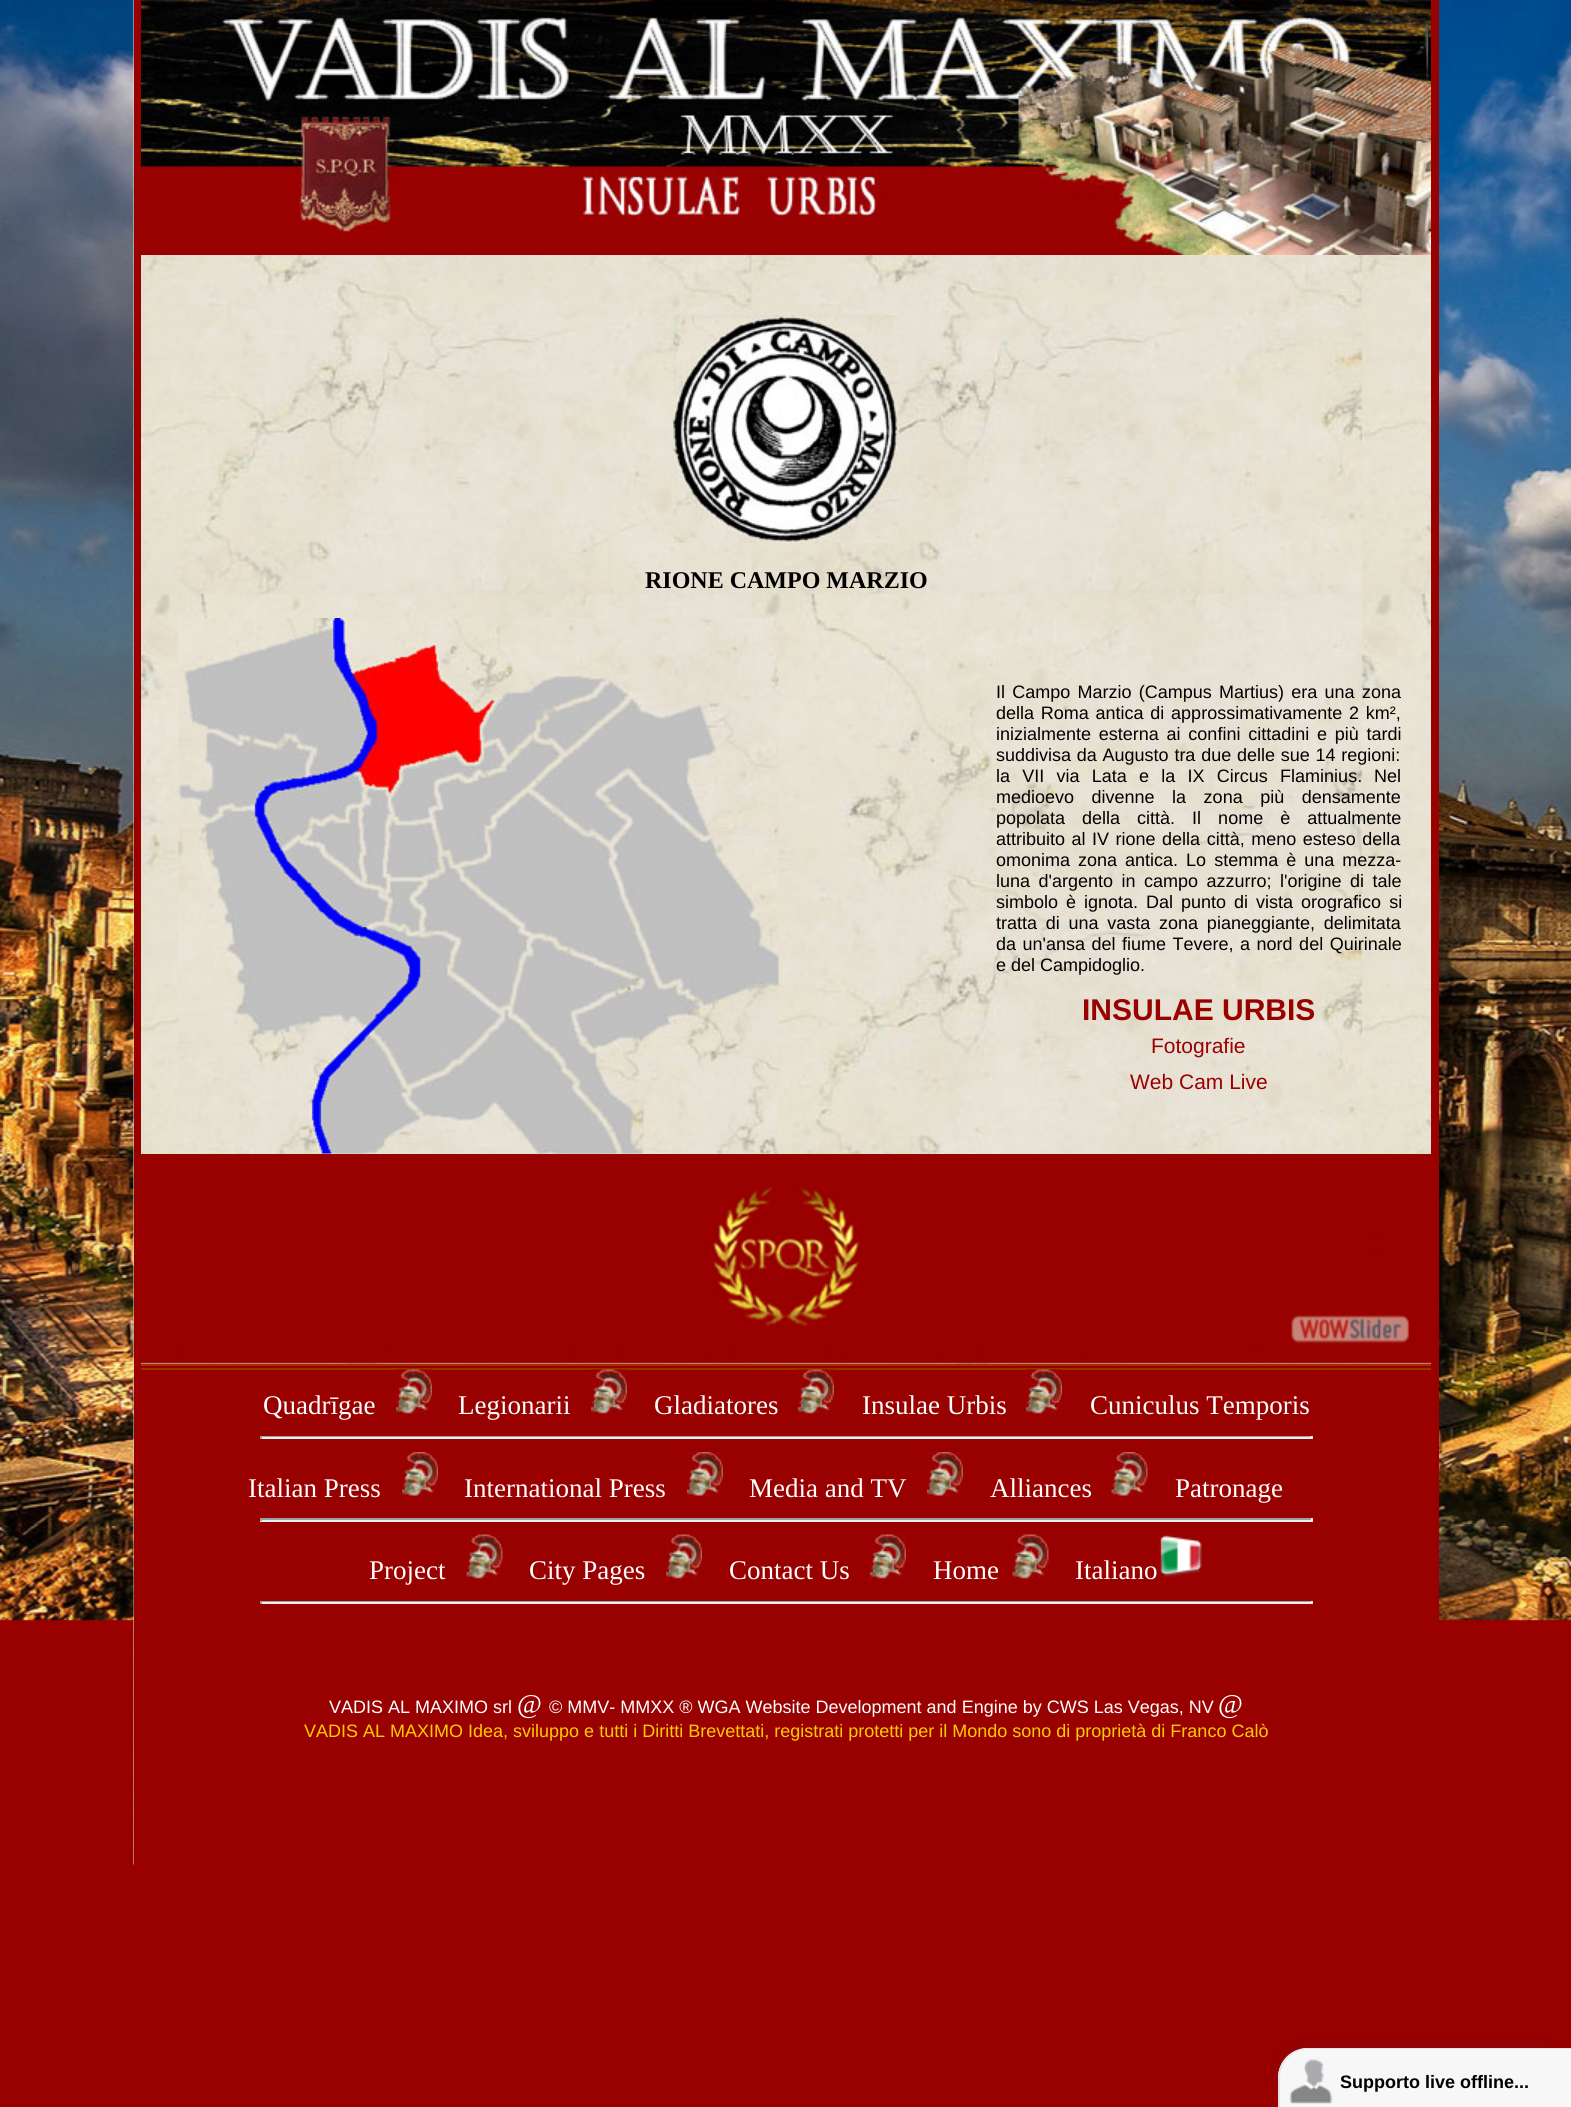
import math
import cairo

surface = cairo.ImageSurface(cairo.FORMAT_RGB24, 1571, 2107)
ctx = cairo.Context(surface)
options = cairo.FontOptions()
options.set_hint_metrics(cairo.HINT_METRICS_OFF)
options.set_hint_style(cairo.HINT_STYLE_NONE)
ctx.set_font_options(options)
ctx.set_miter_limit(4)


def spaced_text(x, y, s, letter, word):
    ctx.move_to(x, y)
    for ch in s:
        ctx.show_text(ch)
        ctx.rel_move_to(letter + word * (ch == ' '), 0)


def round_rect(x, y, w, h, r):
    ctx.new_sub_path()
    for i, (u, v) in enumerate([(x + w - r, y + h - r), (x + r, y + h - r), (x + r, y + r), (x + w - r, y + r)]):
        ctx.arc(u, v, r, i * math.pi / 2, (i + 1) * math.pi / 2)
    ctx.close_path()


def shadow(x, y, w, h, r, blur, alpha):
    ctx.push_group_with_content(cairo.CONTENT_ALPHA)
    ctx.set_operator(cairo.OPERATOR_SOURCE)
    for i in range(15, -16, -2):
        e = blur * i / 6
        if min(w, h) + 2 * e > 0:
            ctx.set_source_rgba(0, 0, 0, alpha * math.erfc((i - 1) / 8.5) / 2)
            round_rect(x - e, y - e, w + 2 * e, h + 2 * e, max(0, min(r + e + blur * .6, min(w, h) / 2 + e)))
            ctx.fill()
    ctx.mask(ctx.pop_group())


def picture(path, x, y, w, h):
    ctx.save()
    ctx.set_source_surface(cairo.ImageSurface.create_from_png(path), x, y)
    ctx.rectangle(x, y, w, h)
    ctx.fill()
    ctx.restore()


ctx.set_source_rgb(0.6, 0, 0)
ctx.paint()
picture("img1.png", 0, 0, 1571, 1621)
picture("img2.png", 133, 0, 1298, 1865)
ctx.set_source_rgb(0.6, 0, 0)
ctx.rectangle(1431, 0, 8, 1621)
ctx.fill()
ctx.rectangle(134, 0, 7, 1865)
ctx.fill()
picture("img3.png", 141, 0, 1290, 255)
picture("img4.png", 673, 315, 226, 228)
ctx.select_font_face("Liberation Serif", cairo.FONT_SLANT_NORMAL, cairo.FONT_WEIGHT_BOLD)
ctx.set_font_size(24)
ctx.set_source_rgb(0, 0, 0)
ctx.move_to(645, 588)
ctx.show_text("RIONE CAMPO MARZIO")
picture("img5.png", 178, 618, 601, 536)
ctx.select_font_face("Liberation Sans")
ctx.set_font_size(18)
spaced_text(996, 698, "Il Campo Marzio (Campus Martius) era una zona", 0, 2.25)
spaced_text(996, 719, "della Roma antica di approssimativamente 2 km²,", 0, 1.75)
spaced_text(996, 740, "inizialmente esterna ai confini cittadini e più tardi", 0, 2.75)
spaced_text(996, 761, "suddivisa da Augusto tra due delle sue 14 regioni:", 0, 0.75)
spaced_text(996, 782, "la VII via Lata e la IX Circus Flaminius.", 0, 7.25)
ctx.move_to(1374, 782)
ctx.show_text("Nel")
spaced_text(996, 803, "medioevo divenne la zona più densamente", 0, 12.5)
spaced_text(996, 824, "popolata della città. Il nome è attualmente", 0, 12)
spaced_text(996, 845, "attribuito al IV rione della città, meno esteso della", 0, 1.5)
spaced_text(996, 866, "omonima zona antica. Lo stemma è una mezza-", 0, 3)
spaced_text(996, 887, "luna d'argento in campo azzurro; l'origine di tale", 0, 3.5)
spaced_text(996, 908, "simbolo è ignota.", 0, 3)
spaced_text(1146, 908, "Dal punto di vista orografico si", 0, 3)
spaced_text(996, 929, "tratta di una vasta zona pianeggiante, delimitata", 0, 3.75)
spaced_text(996, 950, "da un'ansa del fiume Tevere, a nord del Quirinale", 0, 1.5)
ctx.move_to(996, 971)
ctx.show_text("e del Campidoglio.")
ctx.select_font_face("Liberation Sans", cairo.FONT_SLANT_NORMAL, cairo.FONT_WEIGHT_BOLD)
ctx.set_font_size(30)
ctx.set_source_rgb(0.6, 0, 0)
ctx.move_to(1082, 1020)
ctx.show_text("INSULAE URBIS")
ctx.select_font_face("Liberation Sans")
ctx.set_font_size(21)
ctx.move_to(1151, 1053)
ctx.show_text("Fotografie")
ctx.move_to(1130, 1089)
ctx.show_text("Web Cam Live")
picture("img6.png", 141, 1154, 1290, 210)
ctx.rectangle(141, 1366, 1290, 499)
ctx.fill()
ctx.set_source_rgb(0.6, 0.2, 0)
ctx.rectangle(141, 1364, 1290, 2)
ctx.fill()
ctx.rectangle(141, 1368, 1290, 2)
ctx.fill()
ctx.select_font_face("Liberation Serif")
ctx.set_font_size(27)
ctx.set_source_rgb(1, 1, 1)
ctx.move_to(263, 1414)
ctx.show_text("Quadrīgae")
picture("img7.png", 396, 1369, 36, 46)
ctx.move_to(458, 1414)
ctx.show_text("Legionarii")
picture("img7.png", 591, 1369, 36, 46)
ctx.move_to(654, 1414)
ctx.show_text("Gladiatores")
picture("img8.png", 798, 1369, 36, 46)
ctx.move_to(862, 1414)
ctx.show_text("Insulae Urbis")
picture("img9.png", 1026, 1369, 36, 46)
ctx.move_to(1090, 1414)
ctx.show_text("Cuniculus Temporis")
ctx.set_source_rgb(0.624, 0.624, 0.624)
ctx.rectangle(260, 1436, 1053, 1)
ctx.fill()
ctx.set_source_rgb(0.933, 0.933, 0.933)
ctx.rectangle(1311, 1436, 2, 3)
ctx.fill()
ctx.rectangle(260, 1437, 1053, 2)
ctx.fill()
ctx.set_source_rgb(0.624, 0.624, 0.624)
ctx.rectangle(260, 1436, 2, 3)
ctx.fill()
ctx.set_source_rgb(1, 1, 1)
ctx.move_to(248, 1497)
ctx.show_text("Italian Press")
picture("img10.png", 402, 1452, 36, 45)
ctx.move_to(464, 1497)
ctx.show_text("International Press")
picture("img11.png", 687, 1452, 36, 45)
ctx.move_to(749, 1497)
ctx.show_text("Media and TV")
picture("img11.png", 927, 1452, 36, 45)
ctx.move_to(990, 1497)
ctx.show_text("Alliances")
picture("img12.png", 1111, 1452, 37, 45)
ctx.move_to(1175, 1497)
ctx.show_text("Patronage")
ctx.set_source_rgb(0.624, 0.624, 0.624)
ctx.rectangle(260, 1518, 1053, 2)
ctx.fill()
ctx.set_source_rgb(0.933, 0.933, 0.933)
ctx.rectangle(1311, 1518, 2, 3)
ctx.fill()
ctx.rectangle(260, 1520, 1053, 2)
ctx.fill()
ctx.set_source_rgb(0.624, 0.624, 0.624)
ctx.rectangle(260, 1518, 2, 3)
ctx.fill()
ctx.set_source_rgb(1, 1, 1)
ctx.move_to(369, 1579)
ctx.show_text("Project")
picture("img13.png", 466, 1534, 37, 46)
ctx.move_to(529, 1579)
ctx.show_text("City Pages")
picture("img14.png", 666, 1534, 36, 46)
ctx.move_to(729, 1579)
ctx.show_text("Contact Us")
picture("img14.png", 870, 1534, 36, 46)
ctx.move_to(933, 1579)
ctx.show_text("Home")
picture("img13.png", 1012, 1534, 37, 46)
ctx.move_to(1075, 1579)
ctx.show_text("Italiano")
picture("img15.png", 1159, 1535, 43, 42)
ctx.set_source_rgb(0.624, 0.624, 0.624)
ctx.rectangle(260, 1601, 1053, 1)
ctx.fill()
ctx.set_source_rgb(0.933, 0.933, 0.933)
ctx.rectangle(1311, 1601, 2, 3)
ctx.fill()
ctx.rectangle(260, 1602, 1053, 2)
ctx.fill()
ctx.set_source_rgb(0.624, 0.624, 0.624)
ctx.rectangle(260, 1601, 2, 3)
ctx.fill()
ctx.select_font_face("Liberation Sans")
ctx.set_font_size(18)
ctx.set_source_rgb(1, 1, 1)
ctx.move_to(329, 1713)
ctx.show_text("VADIS AL MAXIMO srl")
ctx.select_font_face("Liberation Serif")
ctx.set_font_size(27)
ctx.move_to(517, 1713)
ctx.show_text("@")
ctx.select_font_face("Liberation Sans")
ctx.set_font_size(18)
ctx.move_to(549, 1713)
ctx.show_text("© MMV- MMXX ® WGA Website Development and Engine by CWS Las Vegas, NV")
ctx.select_font_face("Liberation Serif")
ctx.set_font_size(27)
ctx.move_to(1218, 1713)
ctx.show_text("@")
ctx.select_font_face("Liberation Sans")
ctx.set_font_size(18)
ctx.set_source_rgb(1, 0.8, 0)
ctx.move_to(304, 1737)
ctx.show_text("VADIS AL MAXIMO Idea, sviluppo e tutti i Diritti Brevettati, registrati protetti per il Mondo sono di proprietà di Franco Calò")
ctx.set_source_rgb(0.196, 0.196, 0.196)
shadow(1277, 2046, 294, 60, 30, 4, 0.17)
ctx.set_source_rgb(0.965, 0.965, 0.965)
ctx.new_path()
ctx.move_to(1308, 2048)
ctx.line_to(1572, 2048)
ctx.line_to(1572, 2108)
ctx.line_to(1278, 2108)
ctx.line_to(1278, 2078)
ctx.curve_to(1278, 2061.5, 1291.5, 2048, 1308, 2048)
ctx.close_path()
ctx.fill()
ctx.set_source_rgb(0.89, 0.89, 0.89)
ctx.set_fill_rule(cairo.FILL_RULE_EVEN_ODD)
ctx.new_path()
ctx.move_to(1308, 2048)
ctx.line_to(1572, 2048)
ctx.line_to(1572, 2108)
ctx.line_to(1278, 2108)
ctx.line_to(1278, 2078)
ctx.curve_to(1278, 2061, 1291, 2048, 1308, 2048)
ctx.close_path()
ctx.move_to(1308, 2049)
ctx.line_to(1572, 2049)
ctx.line_to(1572, 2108)
ctx.line_to(1280, 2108)
ctx.line_to(1280, 2078)
ctx.curve_to(1280, 2062, 1292, 2049, 1308, 2049)
ctx.close_path()
ctx.fill()
picture("img16.png", 1289, 2059, 44, 45)
ctx.select_font_face("Liberation Sans", cairo.FONT_SLANT_NORMAL, cairo.FONT_WEIGHT_BOLD)
ctx.set_source_rgb(0, 0, 0)
ctx.move_to(1340, 2088)
ctx.show_text("Supporto live offline...")
surface.write_to_png("page.png")
